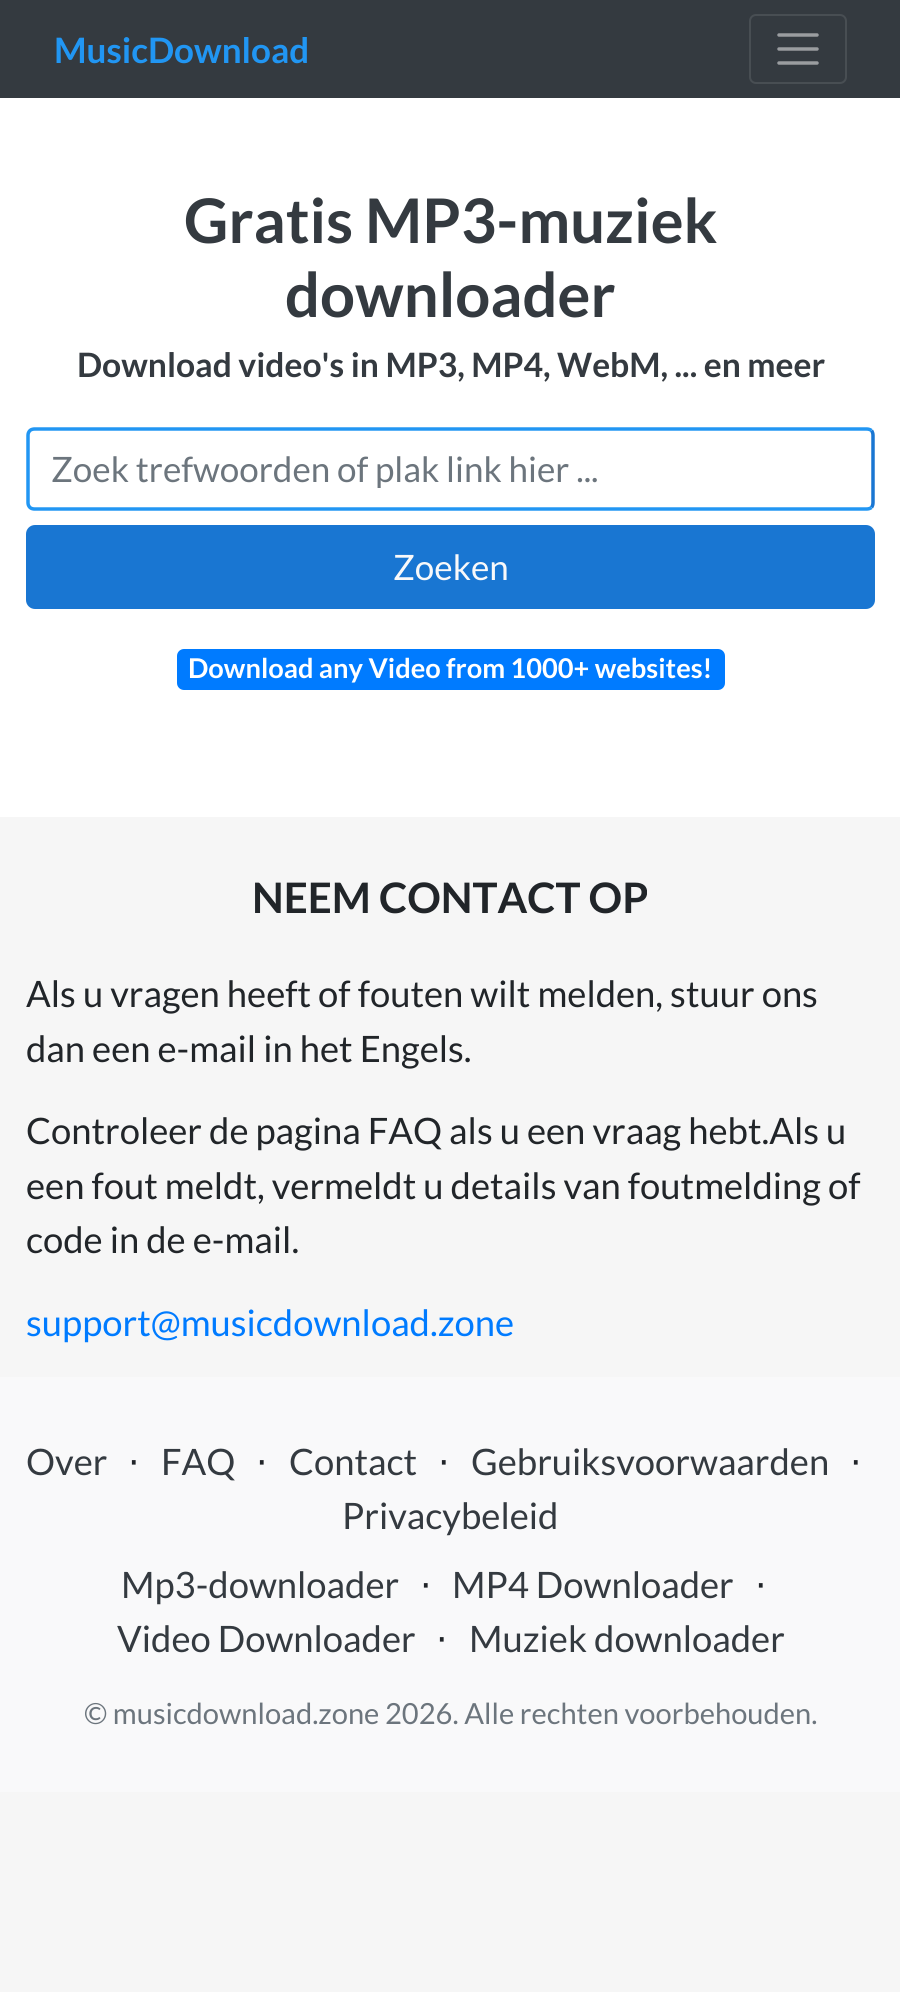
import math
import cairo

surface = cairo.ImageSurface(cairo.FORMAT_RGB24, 900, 1992)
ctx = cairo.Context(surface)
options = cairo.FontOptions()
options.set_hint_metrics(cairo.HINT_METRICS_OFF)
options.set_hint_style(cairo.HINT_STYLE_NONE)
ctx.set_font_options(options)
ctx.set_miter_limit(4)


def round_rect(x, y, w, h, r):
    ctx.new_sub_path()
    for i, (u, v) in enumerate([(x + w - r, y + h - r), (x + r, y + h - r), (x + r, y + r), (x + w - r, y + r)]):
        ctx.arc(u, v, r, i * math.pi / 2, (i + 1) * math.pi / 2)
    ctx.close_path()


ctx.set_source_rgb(0.961, 0.961, 0.961)
ctx.paint()
ctx.set_source_rgb(0.204, 0.227, 0.251)
ctx.rectangle(0, 0, 900, 98)
ctx.fill()
ctx.select_font_face("Lato", cairo.FONT_SLANT_NORMAL, cairo.FONT_WEIGHT_BOLD)
ctx.set_font_size(35)
ctx.set_source_rgb(0.129, 0.588, 0.953)
ctx.move_to(54, 63)
ctx.show_text("MusicDownload")
round_rect(750, 15, 96, 68, 6)
ctx.set_source_rgb(0.282, 0.306, 0.325)
ctx.stroke()
ctx.new_path()
ctx.move_to(779, 35)
ctx.line_to(817, 35)
ctx.move_to(779, 49)
ctx.line_to(817, 49)
ctx.move_to(779, 63)
ctx.line_to(817, 63)
ctx.set_source_rgb(0.604, 0.616, 0.627)
ctx.set_line_width(3.5)
ctx.set_line_cap(cairo.LINE_CAP_ROUND)
ctx.stroke()
ctx.set_source_rgb(1, 1, 1)
ctx.rectangle(0, 98, 900, 719)
ctx.fill()
ctx.set_font_size(61.5)
ctx.set_source_rgb(0.204, 0.227, 0.251)
ctx.move_to(184, 243)
ctx.show_text("Gratis MP3-muziek")
ctx.move_to(285, 317)
ctx.show_text("downloader")
ctx.set_font_size(33.6)
ctx.move_to(77, 377)
ctx.show_text("Download video's in MP3, MP4, WebM, ... en meer")
ctx.new_path()
ctx.move_to(871.5, 430.5)
ctx.curve_to(872.5, 432, 873, 433.5, 873, 435.5)
ctx.line_to(873, 502.5)
ctx.curve_to(873, 504.5, 872.5, 506, 871.5, 507.5)
ctx.set_source_rgb(0.098, 0.463, 0.824)
ctx.set_line_cap(cairo.LINE_CAP_BUTT)
ctx.stroke()
ctx.new_path()
ctx.move_to(871.5, 507.5)
ctx.curve_to(870, 508.5, 868.5, 509, 866.5, 509)
ctx.line_to(34.5, 509)
ctx.curve_to(33, 509, 31, 508.5, 30, 507.5)
ctx.curve_to(28.5, 506, 28, 504.5, 28, 502.5)
ctx.line_to(28, 435.5)
ctx.curve_to(28, 433.5, 28.5, 432, 30, 430.5)
ctx.curve_to(31, 429.5, 33, 429, 34.5, 429)
ctx.line_to(866.5, 429)
ctx.curve_to(868.5, 429, 870, 429.5, 871.5, 430.5)
ctx.set_source_rgb(0.129, 0.588, 0.953)
ctx.stroke()
ctx.select_font_face("Lato")
ctx.set_font_size(35)
ctx.set_source_rgb(0.424, 0.459, 0.49)
ctx.move_to(51, 482)
ctx.show_text("Zoek trefwoorden of plak link hier ...")
ctx.set_source_rgb(0.098, 0.463, 0.824)
round_rect(27, 526, 847, 82, 8)
ctx.fill_preserve()
ctx.set_line_width(2)
ctx.stroke()
ctx.set_source_rgb(0.973, 0.976, 0.98)
ctx.move_to(393, 580)
ctx.show_text("Zoeken")
ctx.set_source_rgb(0, 0.482, 1)
round_rect(177, 649, 548, 41, 7)
ctx.fill()
ctx.select_font_face("Lato", cairo.FONT_SLANT_NORMAL, cairo.FONT_WEIGHT_BOLD)
ctx.set_font_size(27.25)
ctx.set_source_rgb(1, 1, 1)
ctx.move_to(188, 678)
ctx.show_text("Download any Video from 1000+ websites!")
ctx.set_font_size(42)
ctx.set_source_rgb(0.129, 0.145, 0.161)
ctx.move_to(252, 913)
ctx.show_text("NEEM CONTACT OP")
ctx.select_font_face("Lato")
ctx.set_font_size(36.4)
ctx.move_to(26, 1007)
ctx.show_text("Als u vragen heeft of fouten wilt melden, stuur ons")
ctx.move_to(26, 1062)
ctx.show_text("dan een e-mail in het Engels.")
ctx.move_to(26, 1144)
ctx.show_text("Controleer de pagina FAQ als u een vraag hebt.Als u")
ctx.move_to(26, 1199)
ctx.show_text("een fout meldt, vermeldt u details van foutmelding of")
ctx.move_to(26, 1253)
ctx.show_text("code in de e-mail.")
ctx.set_source_rgb(0, 0.482, 1)
ctx.move_to(26, 1336)
ctx.show_text("support@musicdownload.zone")
ctx.set_source_rgb(0.973, 0.976, 0.98)
ctx.rectangle(0, 1377, 900, 415)
ctx.fill()
ctx.set_source_rgb(0.204, 0.227, 0.251)
ctx.move_to(26, 1475)
ctx.show_text("Over")
ctx.select_font_face("DejaVu Sans")
ctx.set_source_rgb(0.129, 0.145, 0.161)
ctx.move_to(128, 1475)
ctx.show_text("⋅")
ctx.select_font_face("Lato")
ctx.set_source_rgb(0.204, 0.227, 0.251)
ctx.move_to(161, 1475)
ctx.show_text("FAQ")
ctx.select_font_face("DejaVu Sans")
ctx.set_source_rgb(0.129, 0.145, 0.161)
ctx.move_to(256, 1475)
ctx.show_text("⋅")
ctx.select_font_face("Lato")
ctx.set_source_rgb(0.204, 0.227, 0.251)
ctx.move_to(289, 1475)
ctx.show_text("Contact")
ctx.select_font_face("DejaVu Sans")
ctx.set_source_rgb(0.129, 0.145, 0.161)
ctx.move_to(438, 1475)
ctx.show_text("⋅")
ctx.select_font_face("Lato")
ctx.set_source_rgb(0.204, 0.227, 0.251)
ctx.move_to(471, 1475)
ctx.show_text("Gebruiksvoorwaarden")
ctx.select_font_face("DejaVu Sans")
ctx.set_source_rgb(0.129, 0.145, 0.161)
ctx.move_to(850, 1475)
ctx.show_text("⋅")
ctx.select_font_face("Lato")
ctx.set_source_rgb(0.204, 0.227, 0.251)
ctx.move_to(342, 1529)
ctx.show_text("Privacybeleid")
ctx.move_to(121, 1598)
ctx.show_text("Mp3-downloader")
ctx.select_font_face("DejaVu Sans")
ctx.set_source_rgb(0.129, 0.145, 0.161)
ctx.move_to(420, 1598)
ctx.show_text("⋅")
ctx.select_font_face("Lato")
ctx.set_source_rgb(0.204, 0.227, 0.251)
ctx.move_to(452, 1598)
ctx.show_text("MP4 Downloader")
ctx.select_font_face("DejaVu Sans")
ctx.set_source_rgb(0.129, 0.145, 0.161)
ctx.move_to(755, 1598)
ctx.show_text("⋅")
ctx.select_font_face("Lato")
ctx.set_source_rgb(0.204, 0.227, 0.251)
ctx.move_to(117, 1652)
ctx.show_text("Video Downloader")
ctx.select_font_face("DejaVu Sans")
ctx.set_source_rgb(0.129, 0.145, 0.161)
ctx.move_to(436, 1652)
ctx.show_text("⋅")
ctx.select_font_face("Lato")
ctx.set_source_rgb(0.204, 0.227, 0.251)
ctx.move_to(469, 1652)
ctx.show_text("Muziek downloader")
ctx.set_font_size(29.1)
ctx.set_source_rgb(0.424, 0.459, 0.49)
ctx.move_to(84, 1724)
ctx.show_text("© musicdownload.zone 2026. Alle rechten voorbehouden.")
surface.write_to_png("page.png")
